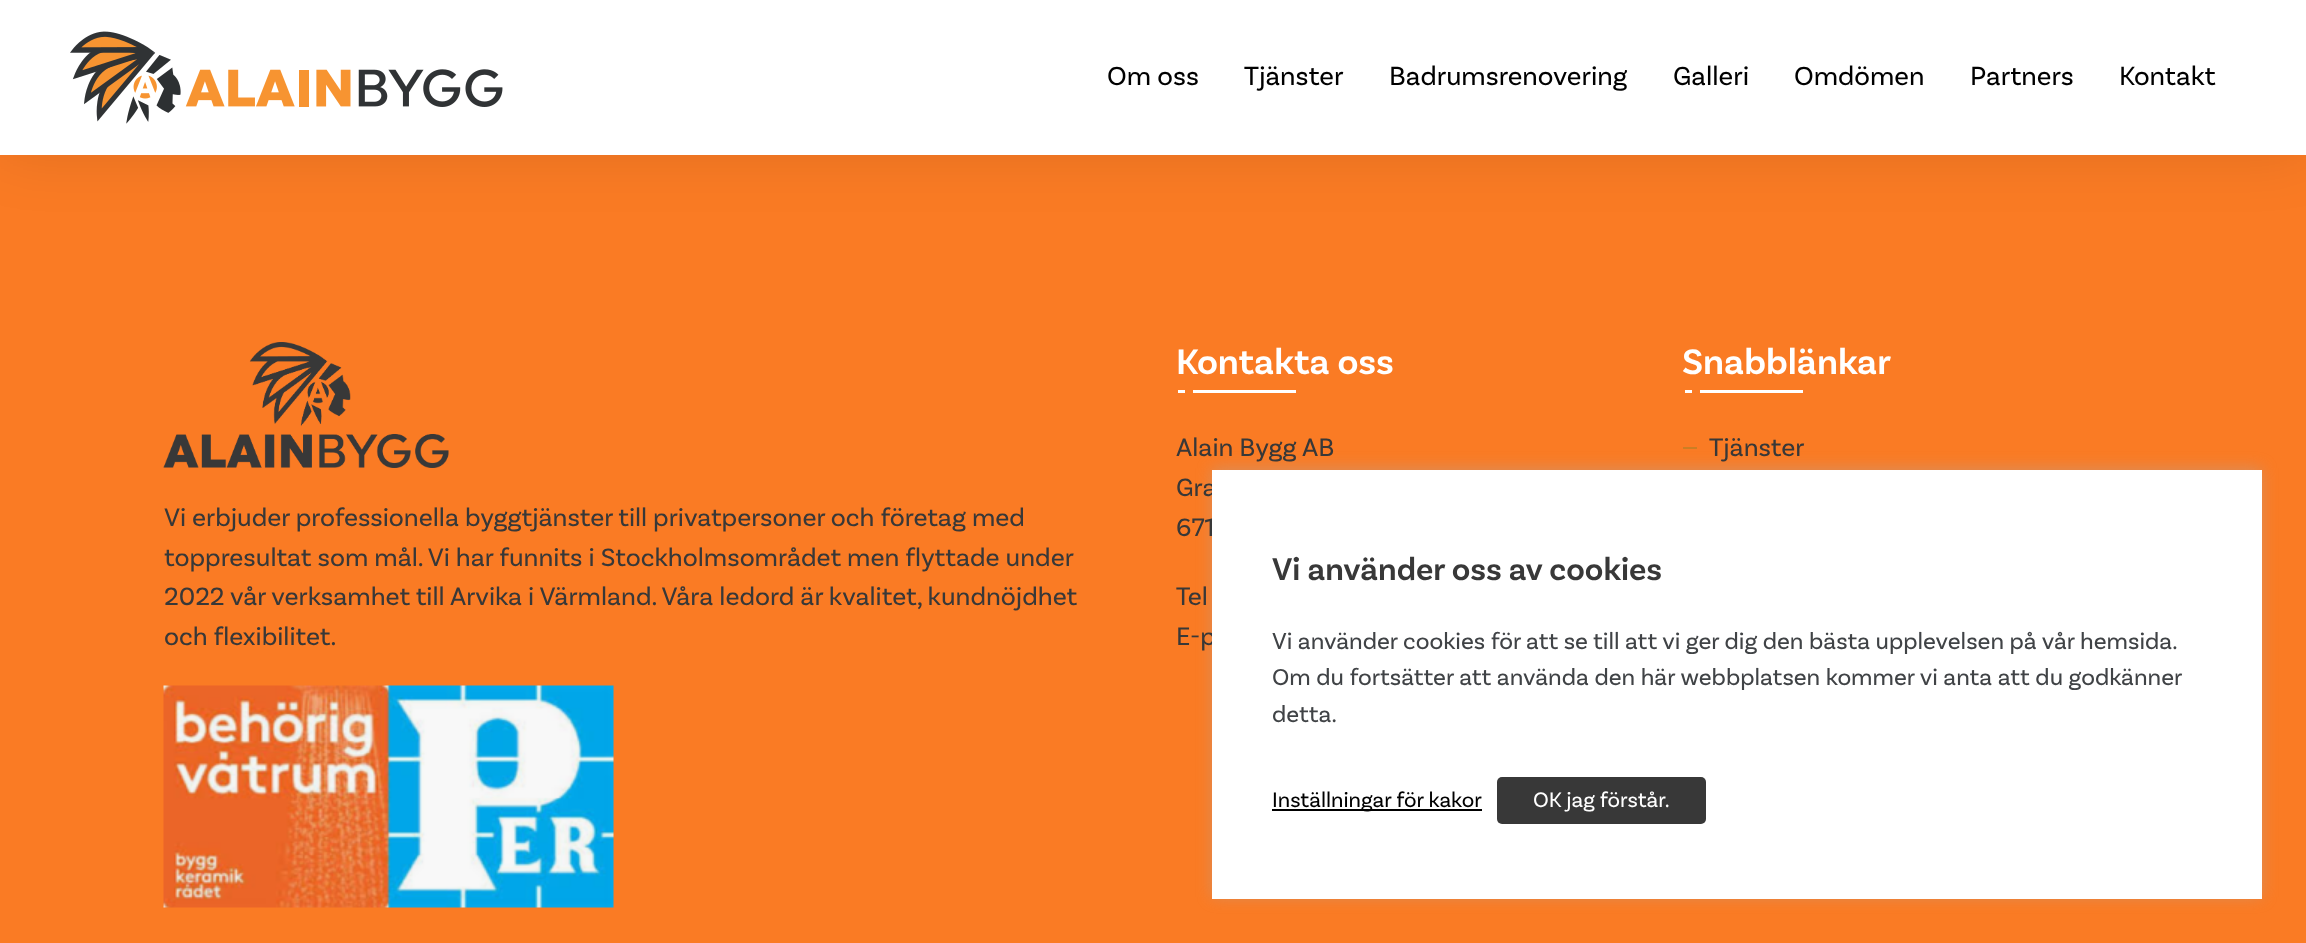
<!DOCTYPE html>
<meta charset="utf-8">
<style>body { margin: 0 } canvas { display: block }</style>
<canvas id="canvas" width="2306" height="943"></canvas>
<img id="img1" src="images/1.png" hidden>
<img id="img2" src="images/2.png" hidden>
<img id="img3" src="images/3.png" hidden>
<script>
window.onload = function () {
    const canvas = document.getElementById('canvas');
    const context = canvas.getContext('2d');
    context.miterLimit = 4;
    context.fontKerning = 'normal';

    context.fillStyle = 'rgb(250, 123, 36)';
    context.fillRect(0, 0, 2306, 943);
    context.fillStyle = 'rgba(0, 0, 0, 0.1)';
    context.filter = 'blur(30px)';
    context.beginPath();
    context.rect(0, -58, 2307, 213);
    context.fill();
    context.filter = 'none';
    context.fillStyle = 'rgb(255, 255, 255)';
    context.fillRect(0, 0, 2306, 155);
    context.drawImage(document.getElementById('img1'), 70, 31, 433, 93);
    context.fillRect(1178, 390, 7, 3);
    context.fillRect(1193, 390, 103, 3);
    context.fillRect(1685, 390, 7, 3);
    context.fillRect(1700, 390, 103, 3);
    context.fillStyle = 'rgb(203, 126, 36)';
    context.fillRect(1683, 447, 14, 2);
    context.drawImage(document.getElementById('img2'), 163, 342, 286, 126);
    context.drawImage(document.getElementById('img3'), 163, 685, 451, 223);
    context.fillStyle = 'rgba(172, 171, 171, 0.4)';
    context.filter = 'blur(7.5px)';
    context.beginPath();
    context.rect(1212, 468, 1050, 429);
    context.fill();
    context.filter = 'none';
    context.font = '27.5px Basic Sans';
    context.fillStyle = 'rgb(0, 0, 0)';
    context.fillText('Om oss', 1107, 85);
    context.fillText('Tjänster', 1244, 85);
    context.fillText('Badrumsrenovering', 1389, 85);
    context.fillText('Galleri', 1673, 85);
    context.fillText('Omdömen', 1794, 85);
    context.fillText('Partners', 1970, 85);
    context.fillText('Kontakt', 2119, 85);
    context.font = '600 37.25px Basic Sans';
    context.fillStyle = 'rgb(255, 255, 255)';
    context.fillText('Kontakta oss', 1176, 374);
    context.font = '26.4px Basic Sans';
    context.fillStyle = 'rgb(56, 56, 56)';
    context.fillText('Alain Bygg AB', 1176, 456);
    context.fillText('Gra', 1176, 496);
    context.fillText('671', 1176, 536);
    context.fillText('Tel', 1176, 605);
    context.fillText('E-p', 1176, 645);
    context.font = '600 37.25px Basic Sans';
    context.fillStyle = 'rgb(255, 255, 255)';
    context.fillText('Snabblänkar', 1682, 374);
    context.font = '26.4px Basic Sans';
    context.fillStyle = 'rgb(56, 56, 56)';
    context.fillText('Tjänster', 1709, 456);
    context.fillText('Vi erbjuder professionella byggtjänster till privatpersoner och företag med', 164, 526);
    context.fillText('toppresultat som mål. Vi har funnits i Stockholmsområdet men flyttade under', 164, 566);
    context.fillText('2022 vår verksamhet till Arvika i Värmland. Våra ledord är kvalitet, kundnöjdhet', 164, 605);
    context.fillText('och flexibilitet.', 164, 645);
    context.fillStyle = 'rgb(255, 255, 255)';
    context.fillRect(1212, 470, 1050, 429);
    context.font = '600 33px Basic Sans';
    context.fillStyle = 'rgb(56, 56, 56)';
    context.fillText('Vi använder oss av cookies', 1272, 580);
    context.font = '24.2px Basic Sans';
    context.fillStyle = 'rgb(64, 67, 70)';
    context.fillText('Vi använder cookies för att se till att vi ger dig den bästa upplevelsen på vår hemsida.', 1272, 649);
    context.fillText('Om du fortsätter att använda den här webbplatsen kommer vi anta att du godkänner', 1272, 685);
    context.fillText('detta.', 1272, 722);
    context.fillStyle = 'rgb(0, 0, 0)';
    context.fillRect(1272, 809, 210, 2);
    context.font = '22px Basic Sans';
    context.fillText('Inställningar för kakor', 1272, 807);
    context.fillStyle = 'rgb(56, 56, 56)';
    context.beginPath();
    context.roundRect(1497, 777, 209, 47, 5);
    context.fill();
    context.fillStyle = 'rgb(255, 255, 255)';
    context.fillText('OK jag förstår.', 1533, 807);
};
</script>
